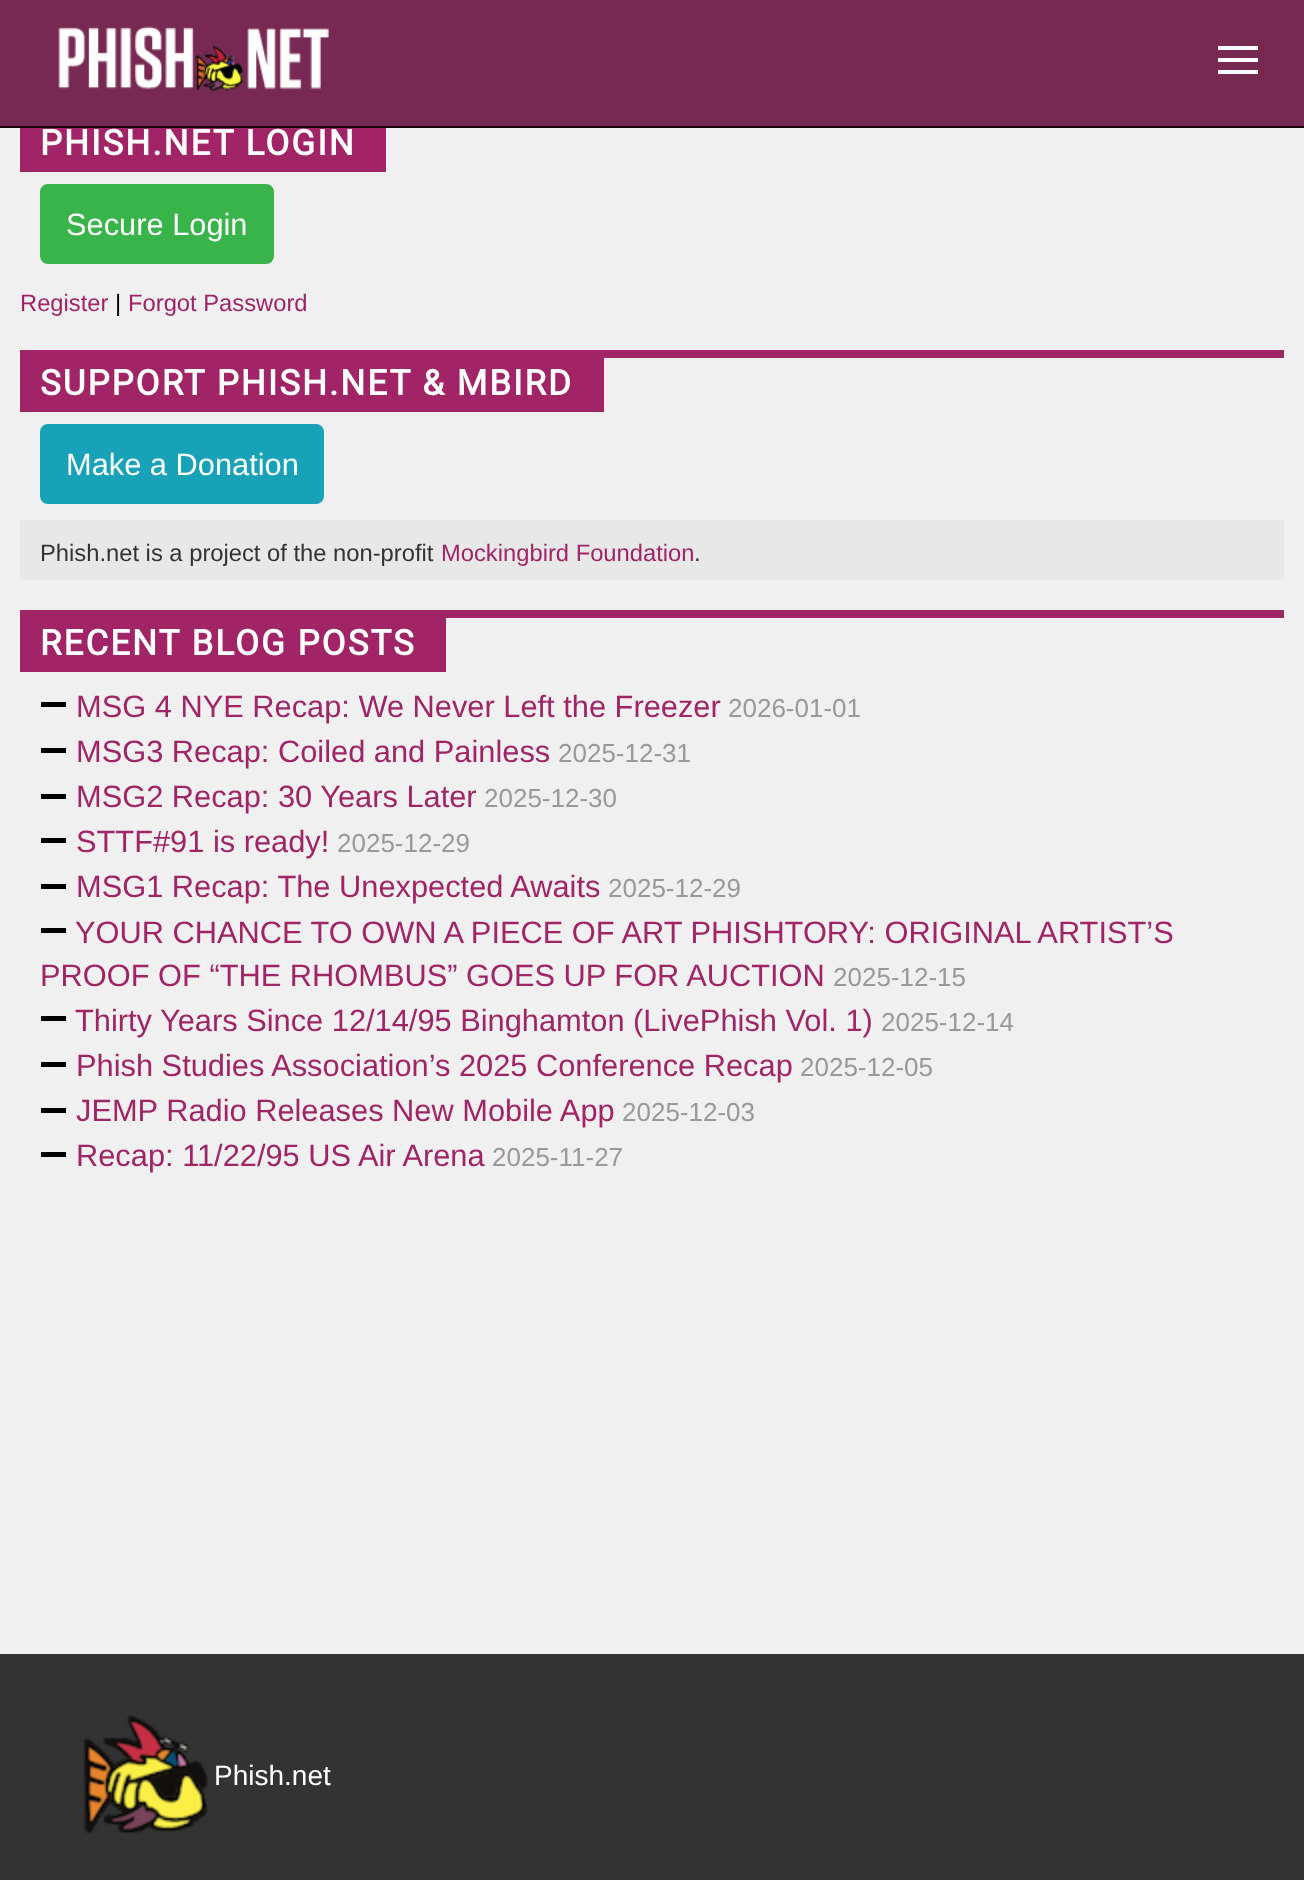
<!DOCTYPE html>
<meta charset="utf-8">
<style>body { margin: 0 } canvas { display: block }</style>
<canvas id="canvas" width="1304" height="1880"></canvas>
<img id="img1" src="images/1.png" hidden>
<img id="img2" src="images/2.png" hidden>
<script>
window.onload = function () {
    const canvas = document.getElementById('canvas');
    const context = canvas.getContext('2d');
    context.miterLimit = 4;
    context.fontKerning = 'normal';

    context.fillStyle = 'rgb(240, 240, 240)';
    context.fillRect(0, 0, 1304, 1880);
    context.fillStyle = 'rgb(119, 41, 83)';
    context.beginPath();
    context.rect(-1, -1, 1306, 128);
    context.fill();
    context.strokeStyle = 'rgb(24, 8, 17)';
    context.lineWidth = 2;
    context.stroke();
    context.drawImage(document.getElementById('img1'), 58, 26, 271, 66);
    context.fillStyle = 'rgb(255, 255, 255)';
    context.fillRect(1218, 46, 40, 4);
    context.fillRect(1218, 58, 40, 4);
    context.fillRect(1218, 70, 40, 4);
    context.fillStyle = 'rgb(160, 36, 102)';
    context.fillRect(20, 128, 366, 44);
    context.fillStyle = 'rgb(56, 180, 74)';
    context.beginPath();
    context.roundRect(41, 185, 232, 78, 7);
    context.fill();
    context.strokeStyle = 'rgb(56, 180, 74)';
    context.stroke();
    context.fillStyle = 'rgb(160, 36, 102)';
    context.fillRect(20, 350, 1264, 8);
    context.fillRect(20, 358, 584, 54);
    context.fillStyle = 'rgb(23, 162, 184)';
    context.beginPath();
    context.roundRect(41, 425, 282, 78, 7);
    context.fill();
    context.strokeStyle = 'rgb(23, 162, 184)';
    context.stroke();
    context.fillStyle = 'rgb(232, 232, 232)';
    context.fillRect(20, 520, 1264, 60);
    context.fillStyle = 'rgb(160, 36, 102)';
    context.fillRect(20, 610, 1264, 8);
    context.fillRect(20, 618, 426, 54);
    context.fillStyle = 'rgb(0, 0, 0)';
    context.fillRect(41, 702, 25, 5);
    context.fillRect(41, 748, 25, 5);
    context.fillRect(41, 794, 25, 5);
    context.fillRect(41, 838, 25, 5);
    context.fillRect(41, 884, 25, 5);
    context.fillRect(41, 928, 25, 5);
    context.fillRect(41, 1016, 25, 5);
    context.fillRect(41, 1062, 25, 5);
    context.fillRect(41, 1108, 25, 5);
    context.fillRect(41, 1152, 25, 5);
    context.fillStyle = 'rgb(51, 51, 51)';
    context.fillRect(0, 1654, 1304, 226);
    context.drawImage(document.getElementById('img2'), 83, 1715, 125, 119);
    context.letterSpacing = '2px';
    context.font = 'bold 35px Roboto';
    context.fillStyle = 'rgb(255, 255, 255)';
    context.fillText('PHISH.NET LOGIN', 40, 155);
    context.letterSpacing = '0px';
    context.font = '30.8px Liberation Sans';
    context.fillText('Secure Login', 66, 235);
    context.font = '23.75px Liberation Sans';
    context.fillStyle = 'rgb(160, 36, 102)';
    context.fillText('Register', 20, 311);
    context.fillStyle = 'rgb(0, 0, 0)';
    context.fillText('|', 115, 311);
    context.fillStyle = 'rgb(160, 36, 102)';
    context.fillText('Forgot Password', 128, 311);
    context.letterSpacing = '2px';
    context.font = 'bold 35px Roboto';
    context.fillStyle = 'rgb(255, 255, 255)';
    context.fillText('SUPPORT PHISH.NET & MBIRD', 40, 395);
    context.letterSpacing = '0px';
    context.font = '30.8px Liberation Sans';
    context.fillText('Make a Donation', 66, 475);
    context.font = '23.75px Liberation Sans';
    context.fillStyle = 'rgb(51, 51, 51)';
    context.fillText('Phish.net is a project of the non-profit', 40, 561);
    context.fillStyle = 'rgb(160, 36, 102)';
    context.fillText('Mockingbird Foundation', 441, 561);
    context.fillStyle = 'rgb(51, 51, 51)';
    context.fillText('.', 694, 561);
    context.letterSpacing = '2px';
    context.font = 'bold 35px Roboto';
    context.fillStyle = 'rgb(255, 255, 255)';
    context.fillText('RECENT BLOG POSTS', 40, 655);
    context.letterSpacing = '0px';
    context.font = '30.8px Liberation Sans';
    context.fillStyle = 'rgb(160, 36, 102)';
    context.fillText('MSG 4 NYE Recap: We Never Left the Freezer', 76, 717);
    context.font = '26px Liberation Sans';
    context.fillStyle = 'rgb(153, 153, 153)';
    context.fillText('2026-01-01', 728, 717);
    context.font = '30.8px Liberation Sans';
    context.fillStyle = 'rgb(160, 36, 102)';
    context.fillText('MSG3 Recap: Coiled and Painless', 76, 762);
    context.font = '26px Liberation Sans';
    context.fillStyle = 'rgb(153, 153, 153)';
    context.fillText('2025-12-31', 558, 762);
    context.font = '30.8px Liberation Sans';
    context.fillStyle = 'rgb(160, 36, 102)';
    context.fillText('MSG2 Recap: 30 Years Later', 76, 807);
    context.font = '26px Liberation Sans';
    context.fillStyle = 'rgb(153, 153, 153)';
    context.fillText('2025-12-30', 484, 807);
    context.font = '30.8px Liberation Sans';
    context.fillStyle = 'rgb(160, 36, 102)';
    context.fillText('STTF#91 is ready!', 76, 852);
    context.font = '26px Liberation Sans';
    context.fillStyle = 'rgb(153, 153, 153)';
    context.fillText('2025-12-29', 337, 852);
    context.font = '30.8px Liberation Sans';
    context.fillStyle = 'rgb(160, 36, 102)';
    context.fillText('MSG1 Recap: The Unexpected Awaits', 76, 897);
    context.font = '26px Liberation Sans';
    context.fillStyle = 'rgb(153, 153, 153)';
    context.fillText('2025-12-29', 608, 897);
    context.font = '30.8px Liberation Sans';
    context.fillStyle = 'rgb(160, 36, 102)';
    context.fillText('YOUR CHANCE TO OWN A PIECE OF ART PHISHTORY: ORIGINAL ARTIST’S', 75, 943);
    context.fillText('PROOF OF “THE RHOMBUS” GOES UP FOR AUCTION', 40, 986);
    context.font = '26px Liberation Sans';
    context.fillStyle = 'rgb(153, 153, 153)';
    context.fillText('2025-12-15', 833, 986);
    context.font = '30.8px Liberation Sans';
    context.fillStyle = 'rgb(160, 36, 102)';
    context.fillText('Thirty Years Since 12/14/95 Binghamton (LivePhish Vol. 1)', 75, 1031);
    context.font = '26px Liberation Sans';
    context.fillStyle = 'rgb(153, 153, 153)';
    context.fillText('2025-12-14', 881, 1031);
    context.font = '30.8px Liberation Sans';
    context.fillStyle = 'rgb(160, 36, 102)';
    context.fillText('Phish Studies Association’s 2025 Conference Recap', 76, 1076);
    context.font = '26px Liberation Sans';
    context.fillStyle = 'rgb(153, 153, 153)';
    context.fillText('2025-12-05', 800, 1076);
    context.font = '30.8px Liberation Sans';
    context.fillStyle = 'rgb(160, 36, 102)';
    context.fillText('JEMP Radio Releases New Mobile App', 76, 1121);
    context.font = '26px Liberation Sans';
    context.fillStyle = 'rgb(153, 153, 153)';
    context.fillText('2025-12-03', 622, 1121);
    context.font = '30.8px Liberation Sans';
    context.fillStyle = 'rgb(160, 36, 102)';
    context.fillText('Recap: 11/22/95 US Air Arena', 76, 1166);
    context.font = '26px Liberation Sans';
    context.fillStyle = 'rgb(153, 153, 153)';
    context.fillText('2025-11-27', 492, 1166);
    context.font = '28px Liberation Sans';
    context.fillStyle = 'rgb(255, 255, 255)';
    context.fillText('Phish.net', 214, 1785);
};
</script>
